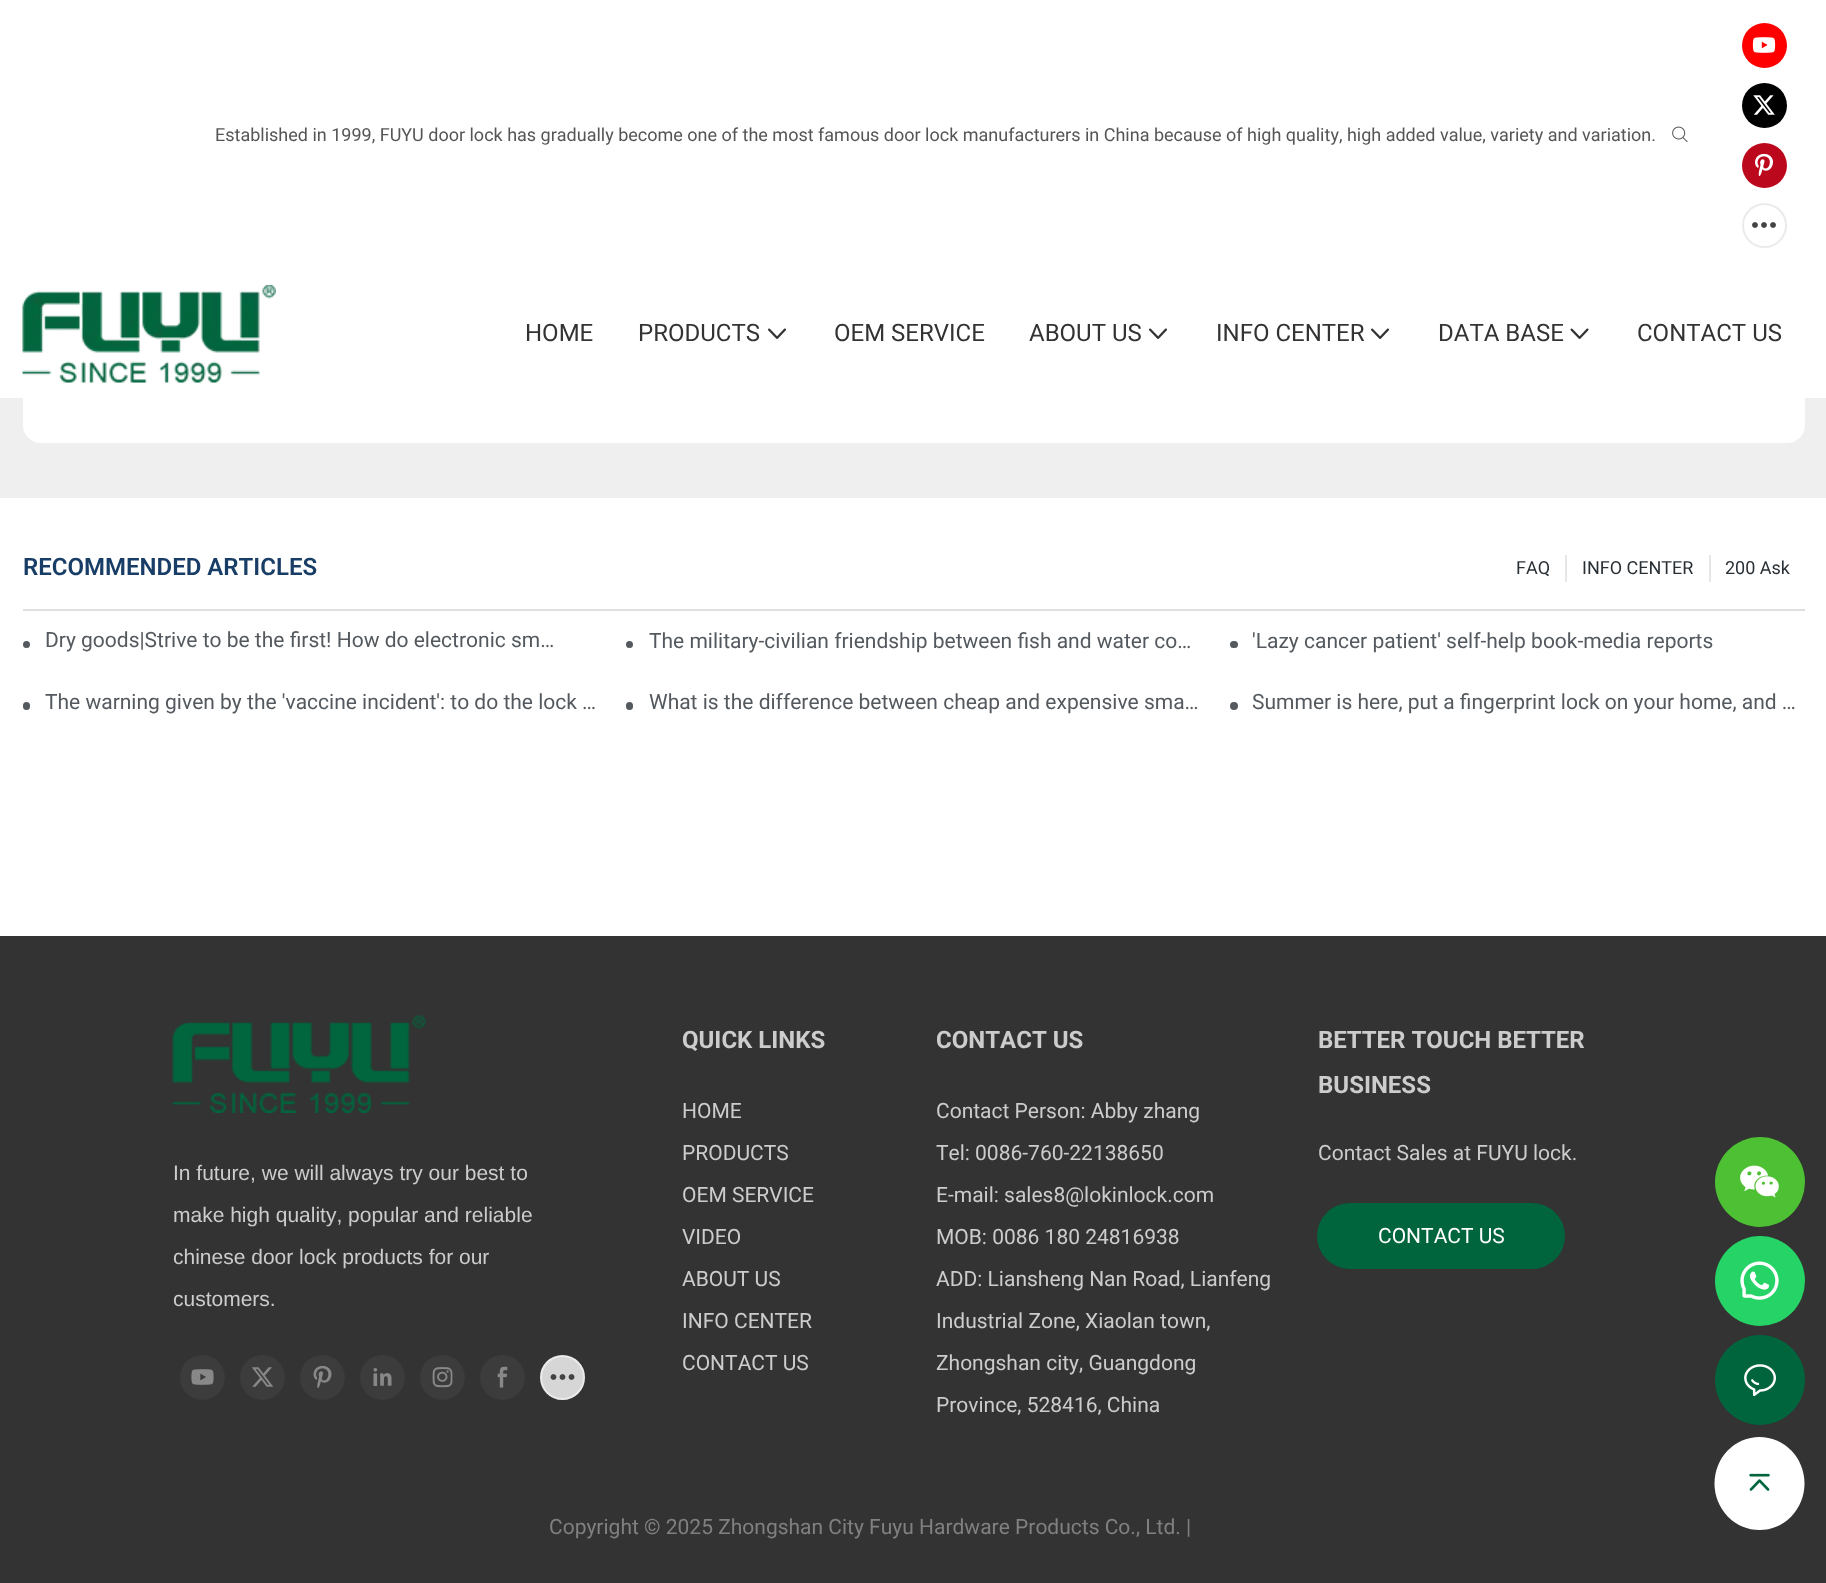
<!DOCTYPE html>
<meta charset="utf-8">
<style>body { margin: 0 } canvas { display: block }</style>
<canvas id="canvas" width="1826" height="1583"></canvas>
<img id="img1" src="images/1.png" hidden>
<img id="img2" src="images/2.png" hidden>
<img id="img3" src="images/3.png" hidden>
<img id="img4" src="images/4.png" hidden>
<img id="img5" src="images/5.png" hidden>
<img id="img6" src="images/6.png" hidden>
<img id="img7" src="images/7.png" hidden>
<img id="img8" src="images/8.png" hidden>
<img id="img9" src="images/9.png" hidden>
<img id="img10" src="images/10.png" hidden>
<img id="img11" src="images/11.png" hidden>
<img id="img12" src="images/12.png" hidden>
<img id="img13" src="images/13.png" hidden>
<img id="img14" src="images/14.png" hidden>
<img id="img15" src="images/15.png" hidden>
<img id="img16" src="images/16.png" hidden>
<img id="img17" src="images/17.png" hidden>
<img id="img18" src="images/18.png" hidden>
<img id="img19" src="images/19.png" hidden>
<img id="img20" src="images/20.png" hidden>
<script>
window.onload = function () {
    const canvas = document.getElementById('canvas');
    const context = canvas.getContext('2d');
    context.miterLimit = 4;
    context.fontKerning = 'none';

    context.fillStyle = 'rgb(255, 255, 255)';
    context.fillRect(0, 0, 1826, 1583);
    context.fillStyle = 'rgb(239, 239, 239)';
    context.fillRect(0, 398, 1826, 100);
    context.fillStyle = 'rgb(255, 255, 255)';
    context.beginPath();
    context.roundRect(23, -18, 1782, 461, 18);
    context.fill();
    context.drawImage(document.getElementById('img1'), 1672, 126, 16, 17);
    context.fillStyle = 'rgb(255, 0, 0)';
    context.beginPath();
    context.arc(1764.5, 45.5, 22.5, 0, 2 * Math.PI);
    context.fill();
    context.drawImage(document.getElementById('img2'), 1752, 37, 24, 16);
    context.fillStyle = 'rgb(0, 0, 0)';
    context.beginPath();
    context.arc(1764.5, 105.5, 22.5, 0, 2 * Math.PI);
    context.fill();
    context.drawImage(document.getElementById('img3'), 1753, 95, 22, 20);
    context.fillStyle = 'rgb(188, 8, 28)';
    context.beginPath();
    context.arc(1764.5, 165.5, 22.5, 0, 2 * Math.PI);
    context.fill();
    context.drawImage(document.getElementById('img4'), 1755, 153, 18, 23);
    context.beginPath();
    context.arc(1764.5, 225.5, 21.5, 0, 2 * Math.PI);
    context.strokeStyle = 'rgb(235, 235, 235)';
    context.lineWidth = 2;
    context.stroke();
    context.drawImage(document.getElementById('img5'), 1752, 222, 24, 6);
    context.drawImage(document.getElementById('img6'), 22, 285, 254, 98);
    context.drawImage(document.getElementById('img7'), 768, 328, 18, 11);
    context.drawImage(document.getElementById('img7'), 1149, 328, 18, 11);
    context.drawImage(document.getElementById('img7'), 1371, 328, 18, 11);
    context.drawImage(document.getElementById('img8'), 1570, 328, 19, 11);
    context.fillStyle = 'rgb(223, 223, 225)';
    context.fillRect(23, 609, 1782, 2);
    context.fillStyle = 'rgb(230, 230, 230)';
    context.fillRect(1565, 555, 2, 27);
    context.fillRect(1709, 555, 2, 27);
    context.fillStyle = 'rgb(92, 92, 92)';
    context.beginPath();
    context.arc(26.5, 644.5, 2, 0, 2 * Math.PI);
    context.fill();
    context.strokeStyle = 'rgb(83, 89, 94)';
    context.lineWidth = 3;
    context.stroke();
    context.beginPath();
    context.arc(629.5, 644.5, 2, 0, 2 * Math.PI);
    context.fill();
    context.stroke();
    context.beginPath();
    context.roundRect(1231.5, 642.5, 5, 4, 2);
    context.fill();
    context.stroke();
    context.beginPath();
    context.roundRect(24.5, 703.5, 4, 5, 2);
    context.fill();
    context.stroke();
    context.beginPath();
    context.roundRect(627.5, 703.5, 4, 5, 2);
    context.fill();
    context.stroke();
    context.beginPath();
    context.arc(1234, 706, 2.5, 0, 2 * Math.PI);
    context.fill();
    context.stroke();
    context.fillStyle = 'rgb(51, 51, 51)';
    context.fillRect(0, 936, 1826, 647);
    context.drawImage(document.getElementById('img9'), 172, 1015, 255, 98);
    context.fillStyle = 'rgb(60, 60, 60)';
    context.beginPath();
    context.arc(202.5, 1377.5, 22.5, 0, 2 * Math.PI);
    context.fill();
    context.drawImage(document.getElementById('img10'), 191, 1369, 23, 16);
    context.beginPath();
    context.arc(262.5, 1377.5, 22.5, 0, 2 * Math.PI);
    context.fill();
    context.drawImage(document.getElementById('img11'), 252, 1367, 22, 20);
    context.beginPath();
    context.arc(322.5, 1377.5, 22.5, 0, 2 * Math.PI);
    context.fill();
    context.drawImage(document.getElementById('img12'), 313, 1365, 19, 23);
    context.beginPath();
    context.arc(382.5, 1377.5, 22.5, 0, 2 * Math.PI);
    context.fill();
    context.drawImage(document.getElementById('img13'), 373, 1368, 19, 18);
    context.beginPath();
    context.arc(442.5, 1377.5, 22.5, 0, 2 * Math.PI);
    context.fill();
    context.drawImage(document.getElementById('img14'), 432, 1367, 21, 21);
    context.beginPath();
    context.arc(502.5, 1377.5, 22.5, 0, 2 * Math.PI);
    context.fill();
    context.drawImage(document.getElementById('img15'), 497, 1366, 11, 22);
    context.fillStyle = 'rgb(214, 214, 214)';
    context.beginPath();
    context.arc(562.5, 1377.5, 21.5, 0, 2 * Math.PI);
    context.fill();
    context.strokeStyle = 'rgb(235, 235, 235)';
    context.lineWidth = 2;
    context.stroke();
    context.drawImage(document.getElementById('img16'), 550, 1374, 25, 6);
    context.fillStyle = 'rgb(0, 101, 61)';
    context.beginPath();
    context.roundRect(1317, 1203, 248, 66, 33);
    context.fill();
    context.fillStyle = 'rgb(78, 192, 52)';
    context.beginPath();
    context.arc(1760, 1182, 45, 0, 2 * Math.PI);
    context.fill();
    context.drawImage(document.getElementById('img17'), 1740, 1165, 39, 33);
    context.fillStyle = 'rgb(37, 211, 102)';
    context.beginPath();
    context.arc(1760, 1281, 45, 0, 2 * Math.PI);
    context.fill();
    context.drawImage(document.getElementById('img18'), 1740, 1261, 39, 39);
    context.fillStyle = 'rgb(0, 101, 61)';
    context.beginPath();
    context.arc(1760, 1380, 45, 0, 2 * Math.PI);
    context.fill();
    context.drawImage(document.getElementById('img19'), 1744, 1364, 32, 33);
    context.fillStyle = 'rgb(255, 255, 255)';
    context.beginPath();
    context.ellipse(1759.5, 1483.5, 45, 46.5, 0, 0, 2 * Math.PI);
    context.fill();
    context.drawImage(document.getElementById('img20'), 1749, 1473, 21, 18);
    context.font = '18px Roboto';
    context.fillStyle = 'rgb(85, 85, 85)';
    context.fillText('Established in 1999, FUYU door lock has gradually become one of the most famous door lock manufacturers in China because of high quality, high added value, variety and variation.', 215, 141);
    context.font = '24px Roboto';
    context.fillStyle = 'rgb(51, 51, 51)';
    context.fillText('HOME', 525, 341);
    context.fillText('PRODUCTS', 638, 341);
    context.fillText('OEM SERVICE', 834, 341);
    context.fillText('ABOUT US', 1029, 341);
    context.fillText('INFO CENTER', 1216, 341);
    context.fillText('DATA BASE', 1438, 341);
    context.fillText('CONTACT US', 1637, 341);
    context.font = '600 24px Roboto';
    context.fillStyle = 'rgb(24, 61, 102)';
    context.fillText('RECOMMENDED ARTICLES', 23, 575);
    context.font = '18px Roboto';
    context.fillStyle = 'rgb(40, 48, 54)';
    context.fillText('FAQ', 1516, 574);
    context.fillText('INFO CENTER', 1582, 574);
    context.fillText('200 Ask', 1725, 574);
    context.font = '21px Roboto';
    context.fillStyle = 'rgb(83, 89, 94)';
    context.fillText('Dry goods|Strive to be the first! How do electronic sm…', 45, 647);
    context.fillText('The military-civilian friendship between fish and water co…', 649, 648);
    context.fillText('\'Lazy cancer patient\' self-help book-media reports', 1252, 648);
    context.fillText('The warning given by the \'vaccine incident\': to do the lock …', 45, 709);
    context.fillText('What is the difference between cheap and expensive sma…', 649, 709);
    context.fillText('Summer is here, put a fingerprint lock on your home, and …', 1252, 709);
    context.font = '21px Liberation Sans';
    context.fillStyle = 'rgb(204, 204, 204)';
    context.fillText('In future, we will always try our best to', 173, 1180);
    context.fillText('make high quality, popular and reliable', 173, 1222);
    context.fillText('chinese door lock products for our', 173, 1264);
    context.fillText('customers.', 173, 1306);
    context.font = 'bold 24px Roboto';
    context.fillText('QUICK LINKS', 682, 1048);
    context.font = '21px Roboto';
    context.fillText('HOME', 682, 1118);
    context.fillText('PRODUCTS', 682, 1160);
    context.fillText('OEM SERVICE', 682, 1202);
    context.fillText('VIDEO', 682, 1244);
    context.fillText('ABOUT US', 682, 1286);
    context.fillText('INFO CENTER', 682, 1328);
    context.fillText('CONTACT US', 682, 1370);
    context.font = 'bold 24px Roboto';
    context.fillText('CONTACT US', 936, 1048);
    context.font = '21px Roboto';
    context.fillText('Contact Person: Abby zhang', 936, 1118);
    context.fillText('Tel: 0086-760-22138650', 936, 1160);
    context.fillText('E-mail: sales8@lokinlock.com', 936, 1202);
    context.fillText('MOB: 0086 180 24816938', 936, 1244);
    context.fillText('ADD: Liansheng Nan Road, Lianfeng', 936, 1286);
    context.fillText('Industrial Zone, Xiaolan town,', 936, 1328);
    context.fillText('Zhongshan city, Guangdong', 936, 1370);
    context.fillText('Province, 528416, China', 936, 1412);
    context.font = 'bold 24px Roboto';
    context.fillText('BETTER TOUCH BETTER', 1318, 1048);
    context.fillText('BUSINESS', 1318, 1093);
    context.font = '21px Roboto';
    context.fillText('Contact Sales at FUYU lock.', 1318, 1160);
    context.fillStyle = 'rgb(255, 255, 255)';
    context.fillText('CONTACT US', 1378, 1243);
    context.fillStyle = 'rgb(128, 128, 128)';
    context.fillText('Copyright © 2025 Zhongshan City Fuyu Hardware Products Co., Ltd. |', 549, 1534);
};
</script>
